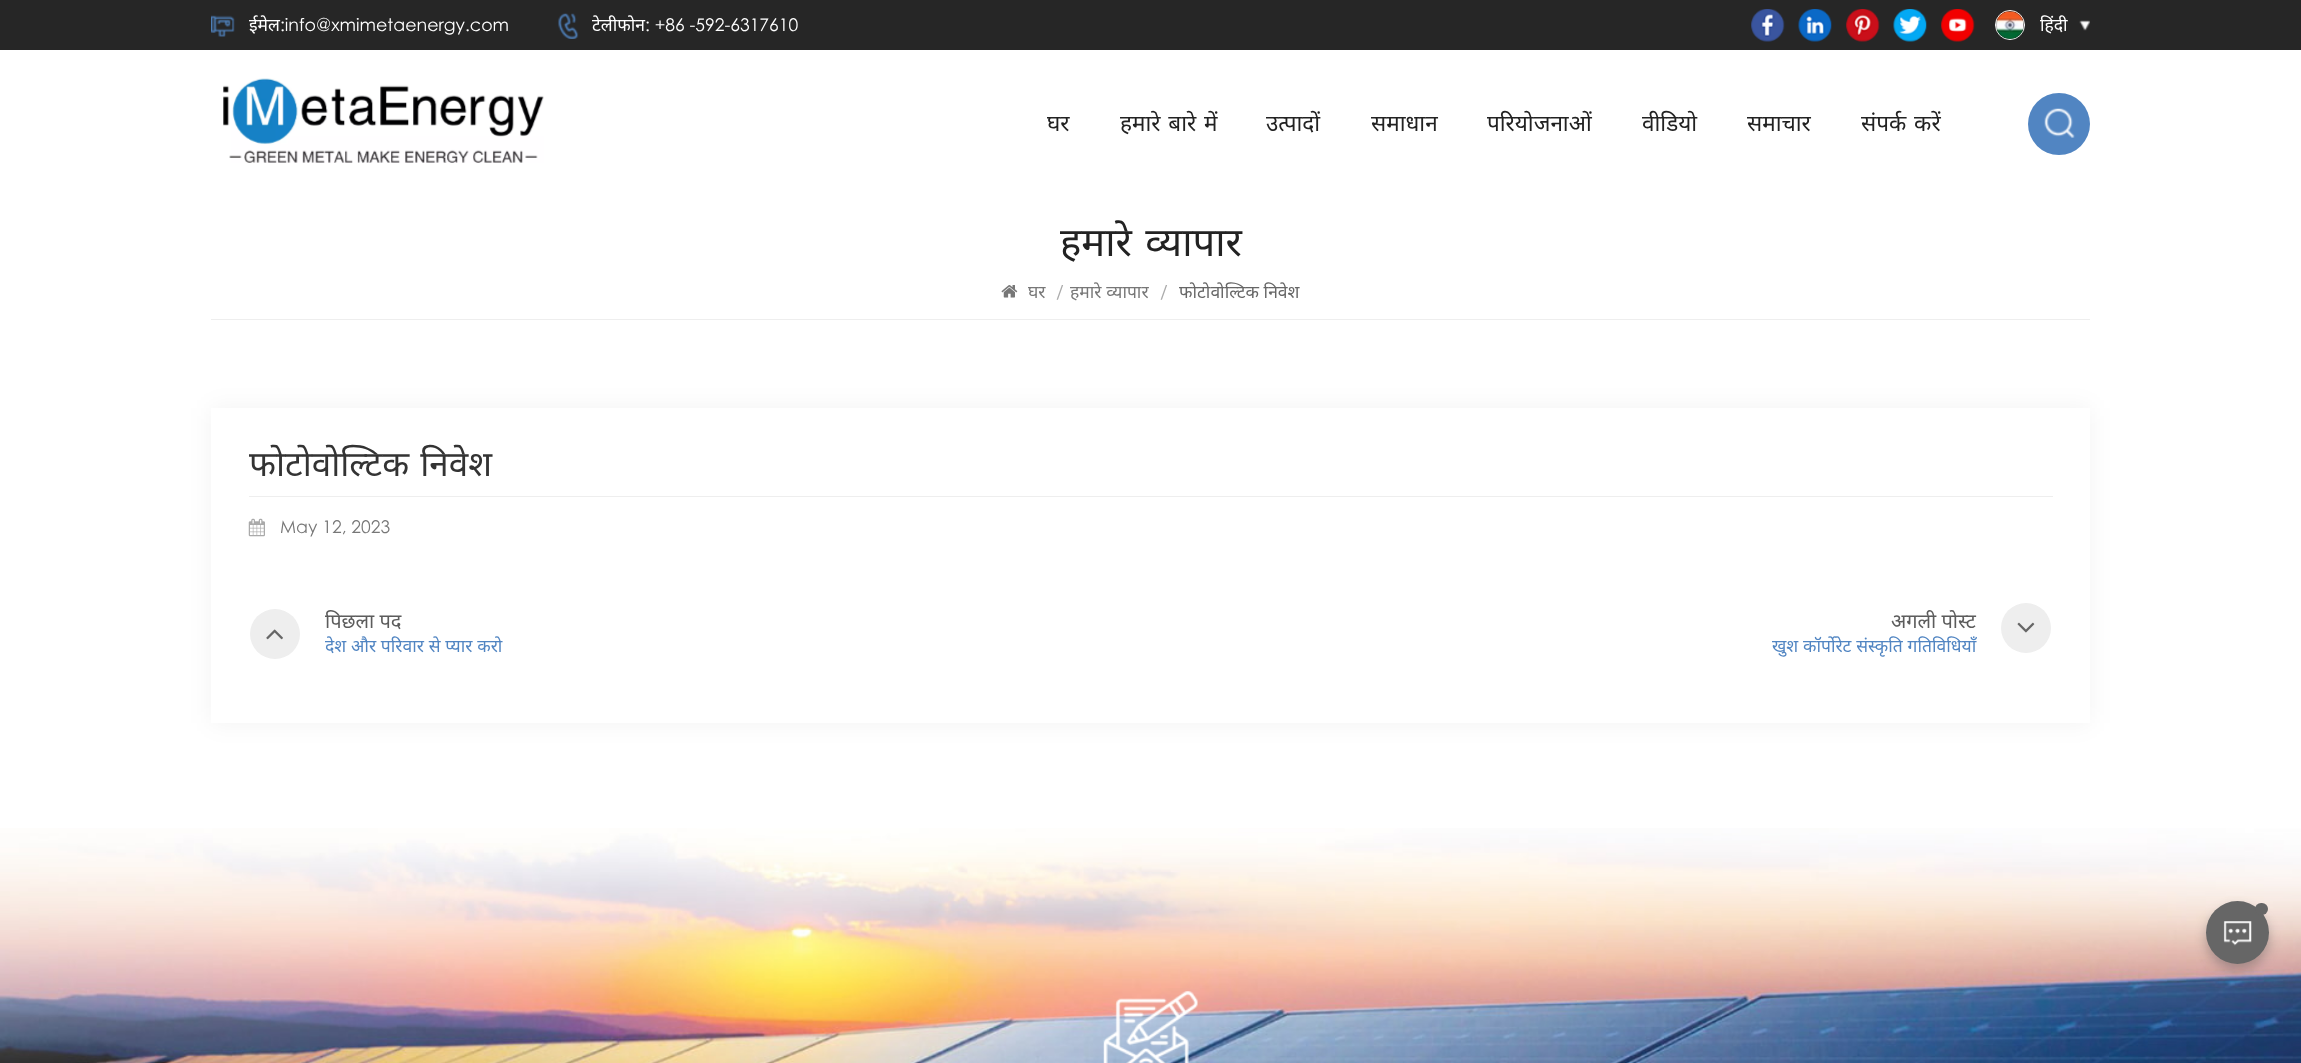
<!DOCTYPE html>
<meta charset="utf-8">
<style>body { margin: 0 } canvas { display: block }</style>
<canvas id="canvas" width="2301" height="1063"></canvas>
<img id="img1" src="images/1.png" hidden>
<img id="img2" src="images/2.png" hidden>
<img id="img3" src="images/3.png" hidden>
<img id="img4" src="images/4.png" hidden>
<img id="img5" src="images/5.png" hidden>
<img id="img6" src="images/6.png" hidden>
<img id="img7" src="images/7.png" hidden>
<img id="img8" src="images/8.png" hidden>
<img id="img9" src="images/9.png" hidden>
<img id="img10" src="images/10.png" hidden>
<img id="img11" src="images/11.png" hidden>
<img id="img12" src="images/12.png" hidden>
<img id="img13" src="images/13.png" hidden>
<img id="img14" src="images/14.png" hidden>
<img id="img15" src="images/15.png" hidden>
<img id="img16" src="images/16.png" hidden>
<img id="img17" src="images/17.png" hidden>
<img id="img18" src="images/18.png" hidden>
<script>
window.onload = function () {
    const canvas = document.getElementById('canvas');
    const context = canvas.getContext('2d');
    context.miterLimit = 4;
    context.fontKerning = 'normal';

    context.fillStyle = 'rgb(255, 255, 255)';
    context.fillRect(0, 0, 2301, 1063);
    context.fillStyle = 'rgb(38, 38, 38)';
    context.fillRect(0, 0, 2301, 50);
    context.drawImage(document.getElementById('img1'), 211, 15, 24, 22);
    context.drawImage(document.getElementById('img2'), 558, 13, 21, 26);
    context.drawImage(document.getElementById('img3'), 1751, 9, 34, 33);
    context.drawImage(document.getElementById('img4'), 1798, 9, 34, 33);
    context.drawImage(document.getElementById('img5'), 1846, 9, 34, 33);
    context.drawImage(document.getElementById('img6'), 1893, 9, 34, 33);
    context.drawImage(document.getElementById('img7'), 1941, 9, 34, 33);
    context.beginPath();
    context.arc(2010, 25, 14.5, 0, 2 * Math.PI);
    context.strokeStyle = 'rgb(255, 255, 255)';
    context.stroke();
    context.drawImage(document.getElementById('img8'), 1996, 10, 28, 29);
    context.drawImage(document.getElementById('img9'), 2079, 20, 11, 11);
    context.drawImage(document.getElementById('img10'), 223, 78, 321, 85);
    context.fillStyle = 'rgb(81, 133, 194)';
    context.beginPath();
    context.arc(2059, 124, 31, 0, 2 * Math.PI);
    context.fill();
    context.drawImage(document.getElementById('img11'), 2044, 108, 31, 30);
    context.fillStyle = 'rgb(238, 238, 238)';
    context.fillRect(211, 319, 1879, 1);
    context.drawImage(document.getElementById('img12'), 1001, 285, 17, 13);
    context.fillStyle = 'rgba(0, 0, 0, 0.05)';
    context.filter = 'blur(12.5px)';
    context.beginPath();
    context.rect(211, 408, 1879, 315);
    context.fill();
    context.filter = 'none';
    context.fillStyle = 'rgb(255, 255, 255)';
    context.fillRect(211, 408, 1879, 315);
    context.fillStyle = 'rgb(238, 238, 238)';
    context.fillRect(249, 496, 1804, 1);
    context.drawImage(document.getElementById('img13'), 248, 518, 17, 19);
    context.beginPath();
    context.arc(275, 634, 25, 0, 2 * Math.PI);
    context.fill();
    context.drawImage(document.getElementById('img14'), 266, 629, 17, 11);
    context.beginPath();
    context.arc(2026, 628, 25, 0, 2 * Math.PI);
    context.fill();
    context.drawImage(document.getElementById('img15'), 2017, 622, 18, 11);
    context.drawImage(document.getElementById('img16'), 0, 828, 2301, 235);
    context.drawImage(document.getElementById('img17'), 1103, 991, 95, 72);
    context.fillStyle = 'rgba(35, 50, 56, 0.3)';
    context.filter = 'blur(6px)';
    context.beginPath();
    context.roundRect(2206, 908, 63, 62, 31);
    context.fill();
    context.filter = 'none';
    context.fillStyle = 'rgb(102, 102, 102)';
    context.beginPath();
    context.arc(2237.5, 932.5, 31.5, 0, 2 * Math.PI);
    context.fill();
    context.drawImage(document.getElementById('img18'), 2223, 921, 29, 25);
    context.beginPath();
    context.roundRect(2255, 903, 13, 12, 6);
    context.fill();
    context.font = '17.5px Noto Sans';
    context.fillStyle = 'rgb(255, 255, 255)';
    context.fillText('ईमेल', 249, 31);
    context.font = '17.5px Century Gothic';
    context.fillText(':info@xmimetaenergy.com', 280, 31);
    context.font = '17.5px Noto Sans';
    context.fillText('टेलीफोन', 592, 31);
    context.font = '17.5px Century Gothic';
    context.fillText(': +86 -592-6317610', 645, 31);
    context.font = '17.5px Noto Sans';
    context.fillText('हिंदी', 2040, 31);
    context.font = '22.5px Noto Sans';
    context.fillStyle = 'rgb(34, 34, 34)';
    context.fillText('घर', 1047, 131);
    context.wordSpacing = '2px';
    context.fillText('हमारे बारे में', 1120, 131);
    context.wordSpacing = '0px';
    context.fillText('उत्पादों', 1266, 131);
    context.fillText('समाधान', 1371, 131);
    context.fillText('परियोजनाओं', 1487, 131);
    context.fillText('वीडियो', 1642, 131);
    context.fillText('समाचार', 1747, 131);
    context.wordSpacing = '2px';
    context.fillText('संपर्क करें', 1861, 131);
    context.wordSpacing = '3px';
    context.font = '40px Noto Sans';
    context.fillText('हमारे व्यापार', 1060, 256);
    context.wordSpacing = '0px';
    context.font = '17.5px Noto Sans';
    context.fillStyle = 'rgb(119, 119, 119)';
    context.fillText('घर', 1028, 298);
    context.font = '17.5px Century Gothic';
    context.fillStyle = 'rgb(170, 170, 170)';
    context.fillText('/', 1056, 298);
    context.wordSpacing = '0.25px';
    context.font = '17.5px Noto Sans';
    context.fillStyle = 'rgb(119, 119, 119)';
    context.fillText('हमारे व्यापार', 1070, 298);
    context.wordSpacing = '0px';
    context.font = '17.5px Century Gothic';
    context.fillStyle = 'rgb(170, 170, 170)';
    context.fillText('/', 1160, 298);
    context.font = '17.5px Noto Sans';
    context.fillStyle = 'rgb(102, 102, 102)';
    context.fillText('फोटोवोल्टिक निवेश', 1179, 298);
    context.wordSpacing = '2px';
    context.font = '35px Noto Sans';
    context.fillStyle = 'rgb(51, 51, 51)';
    context.fillText('फोटोवोल्टिक निवेश', 249, 476);
    context.wordSpacing = '0px';
    context.font = '17.5px Century Gothic';
    context.fillStyle = 'rgb(119, 119, 119)';
    context.fillText('May 12, 2023', 280, 533);
    context.font = '20px Noto Sans';
    context.fillStyle = 'rgb(92, 92, 92)';
    context.fillText('पिछला पद', 325, 628);
    context.save();
    context.beginPath();
    context.rect(325, 634, 819, 25);
    context.clip();
    context.wordSpacing = '0.25px';
    context.font = '17.5px Noto Sans';
    context.fillStyle = 'rgb(81, 133, 194)';
    context.fillText('देश और परिवार से प्यार करो', 325, 652);
    context.restore();
    context.fillText('अगली पोस्ट', 1891, 628);
    context.wordSpacing = '0.25px';
    context.font = '17.5px Noto Sans';
    context.fillStyle = 'rgb(81, 133, 194)';
    context.fillText('खुश कॉर्पोरेट संस्कृति गतिविधियाँ', 1772, 652);
};
</script>
